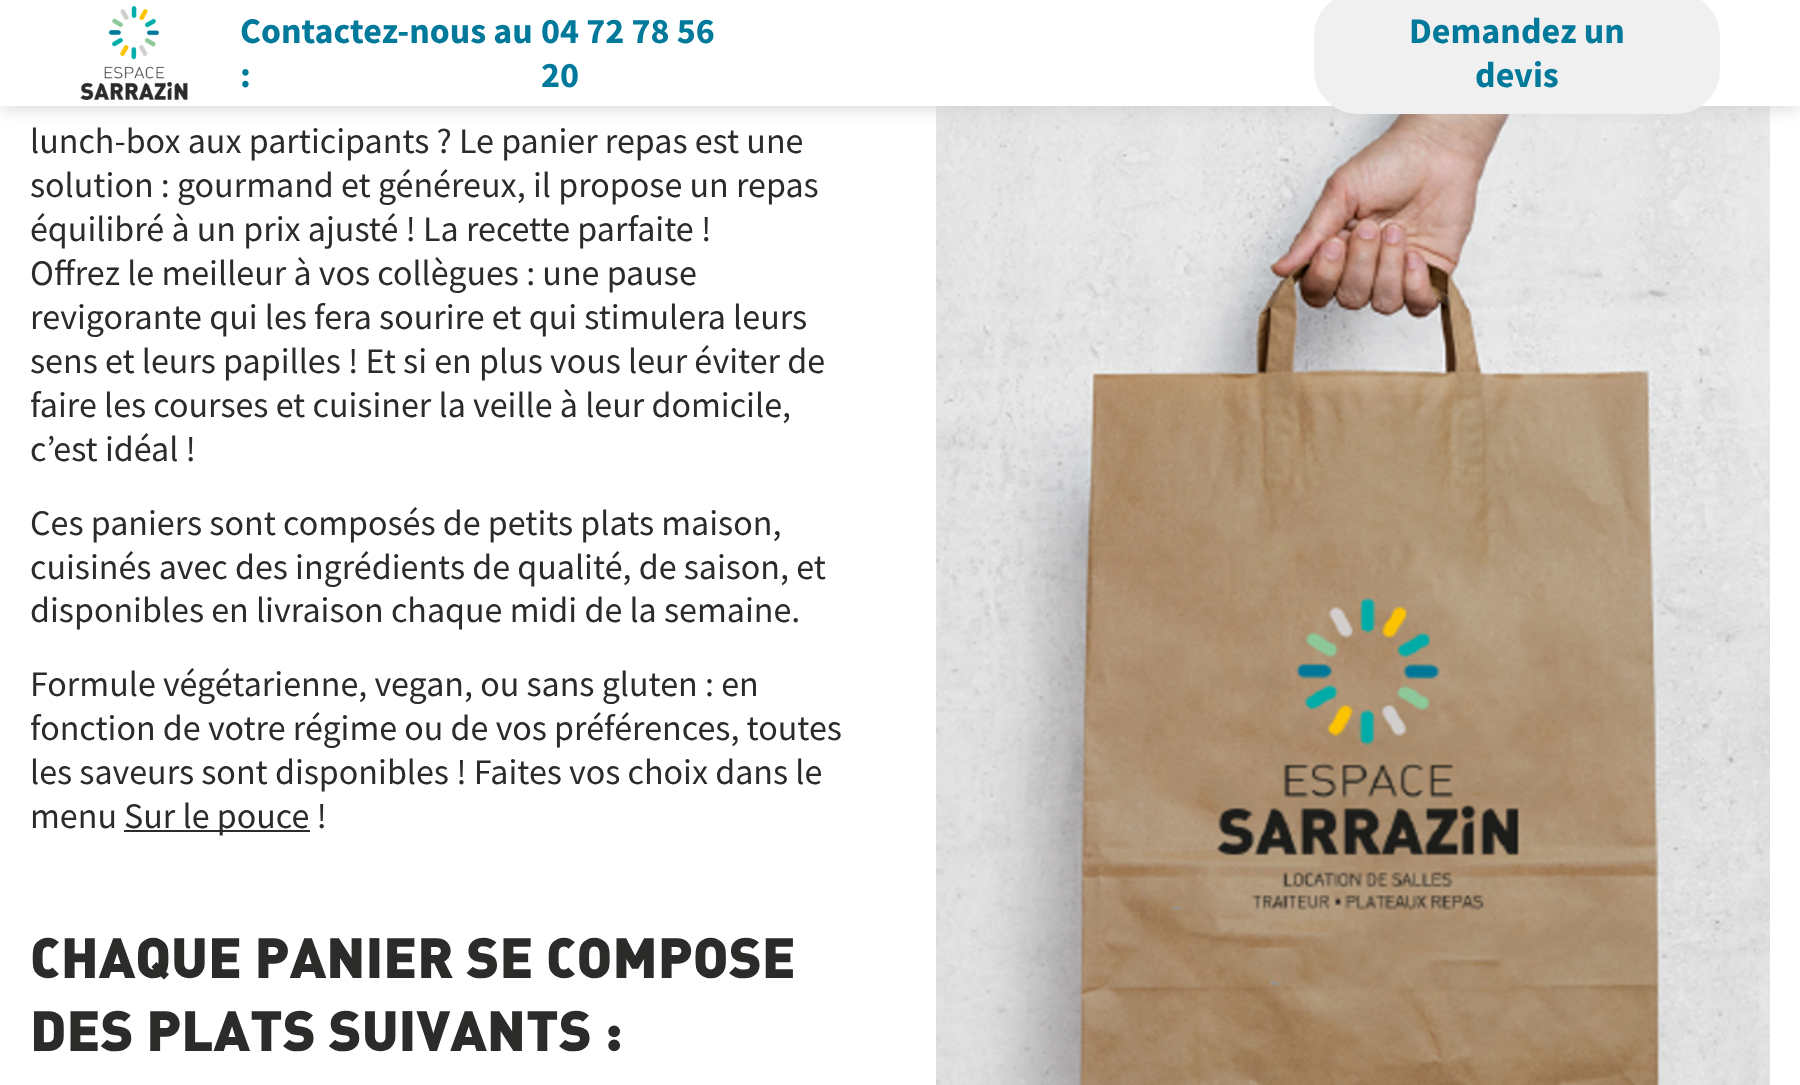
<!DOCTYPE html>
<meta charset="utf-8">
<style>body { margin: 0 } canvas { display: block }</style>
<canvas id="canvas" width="1800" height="1085"></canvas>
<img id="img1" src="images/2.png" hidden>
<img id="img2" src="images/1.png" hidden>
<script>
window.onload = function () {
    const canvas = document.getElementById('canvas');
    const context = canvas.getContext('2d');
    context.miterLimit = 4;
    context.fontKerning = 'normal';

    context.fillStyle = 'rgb(255, 255, 255)';
    context.fillRect(0, 0, 1800, 1085);
    context.drawImage(document.getElementById('img1'), 936, 106, 834, 979);
    context.fillStyle = 'rgb(210, 206, 205)';
    context.filter = 'blur(10px)';
    context.beginPath();
    context.rect(0, 0, 1800, 106);
    context.fill();
    context.filter = 'none';
    context.fillStyle = 'rgb(255, 255, 255)';
    context.fillRect(0, 0, 1800, 106);
    context.drawImage(document.getElementById('img2'), 80, 6, 108, 94);
    context.fillStyle = 'rgb(241, 240, 240)';
    context.beginPath();
    context.roundRect(1316, -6, 402, 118, 42);
    context.fill();
    context.strokeStyle = 'rgb(241, 240, 240)';
    context.lineWidth = 4;
    context.stroke();
    context.fillStyle = 'rgb(43, 43, 42)';
    context.fillRect(124, 830, 186, 2);
    context.font = 'bold 36px Source Sans Pro';
    context.fillStyle = 'rgb(0, 121, 155)';
    context.fillText('Contactez-nous au', 240, 43);
    context.fillText(':', 240, 87);
    context.fillText('04 72 78 56', 541, 43);
    context.fillText('20', 541, 87);
    context.fillText('Demandez un', 1409, 43);
    context.fillText('devis', 1475, 87);
    context.font = '36px Source Sans Pro';
    context.fillStyle = 'rgb(43, 43, 42)';
    context.fillText('lunch-box aux participants ? Le panier repas est une', 30, 153);
    context.fillText('solution : gourmand et généreux, il propose un repas', 30, 197);
    context.fillText('équilibré à un prix ajusté ! La recette parfaite !', 30, 241);
    context.fillText('Offrez le meilleur à vos collègues : une pause', 30, 285);
    context.fillText('revigorante qui les fera sourire et qui stimulera leurs', 30, 329);
    context.fillText('sens et leurs papilles ! Et si en plus vous leur éviter de', 30, 373);
    context.fillText('faire les courses et cuisiner la veille à leur domicile,', 30, 417);
    context.fillText('c’est idéal !', 30, 461);
    context.fillText('Ces paniers sont composés de petits plats maison,', 30, 535);
    context.fillText('cuisinés avec des ingrédients de qualité, de saison, et', 30, 579);
    context.fillText('disponibles en livraison chaque midi de la semaine.', 30, 622);
    context.fillText('Formule végétarienne, vegan, ou sans gluten : en', 30, 696);
    context.fillText('fonction de votre régime ou de vos préférences, toutes', 30, 740);
    context.fillText('les saveurs sont disponibles ! Faites vos choix dans le', 30, 784);
    context.fillText('menu', 30, 828);
    context.fillText('Sur le pouce !', 124, 828);
    context.font = '900 56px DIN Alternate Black';
    context.fillText('CHAQUE PANIER SE COMPOSE', 30, 978);
    context.fillText('DES PLATS SUIVANTS :', 30, 1051);
};
</script>
